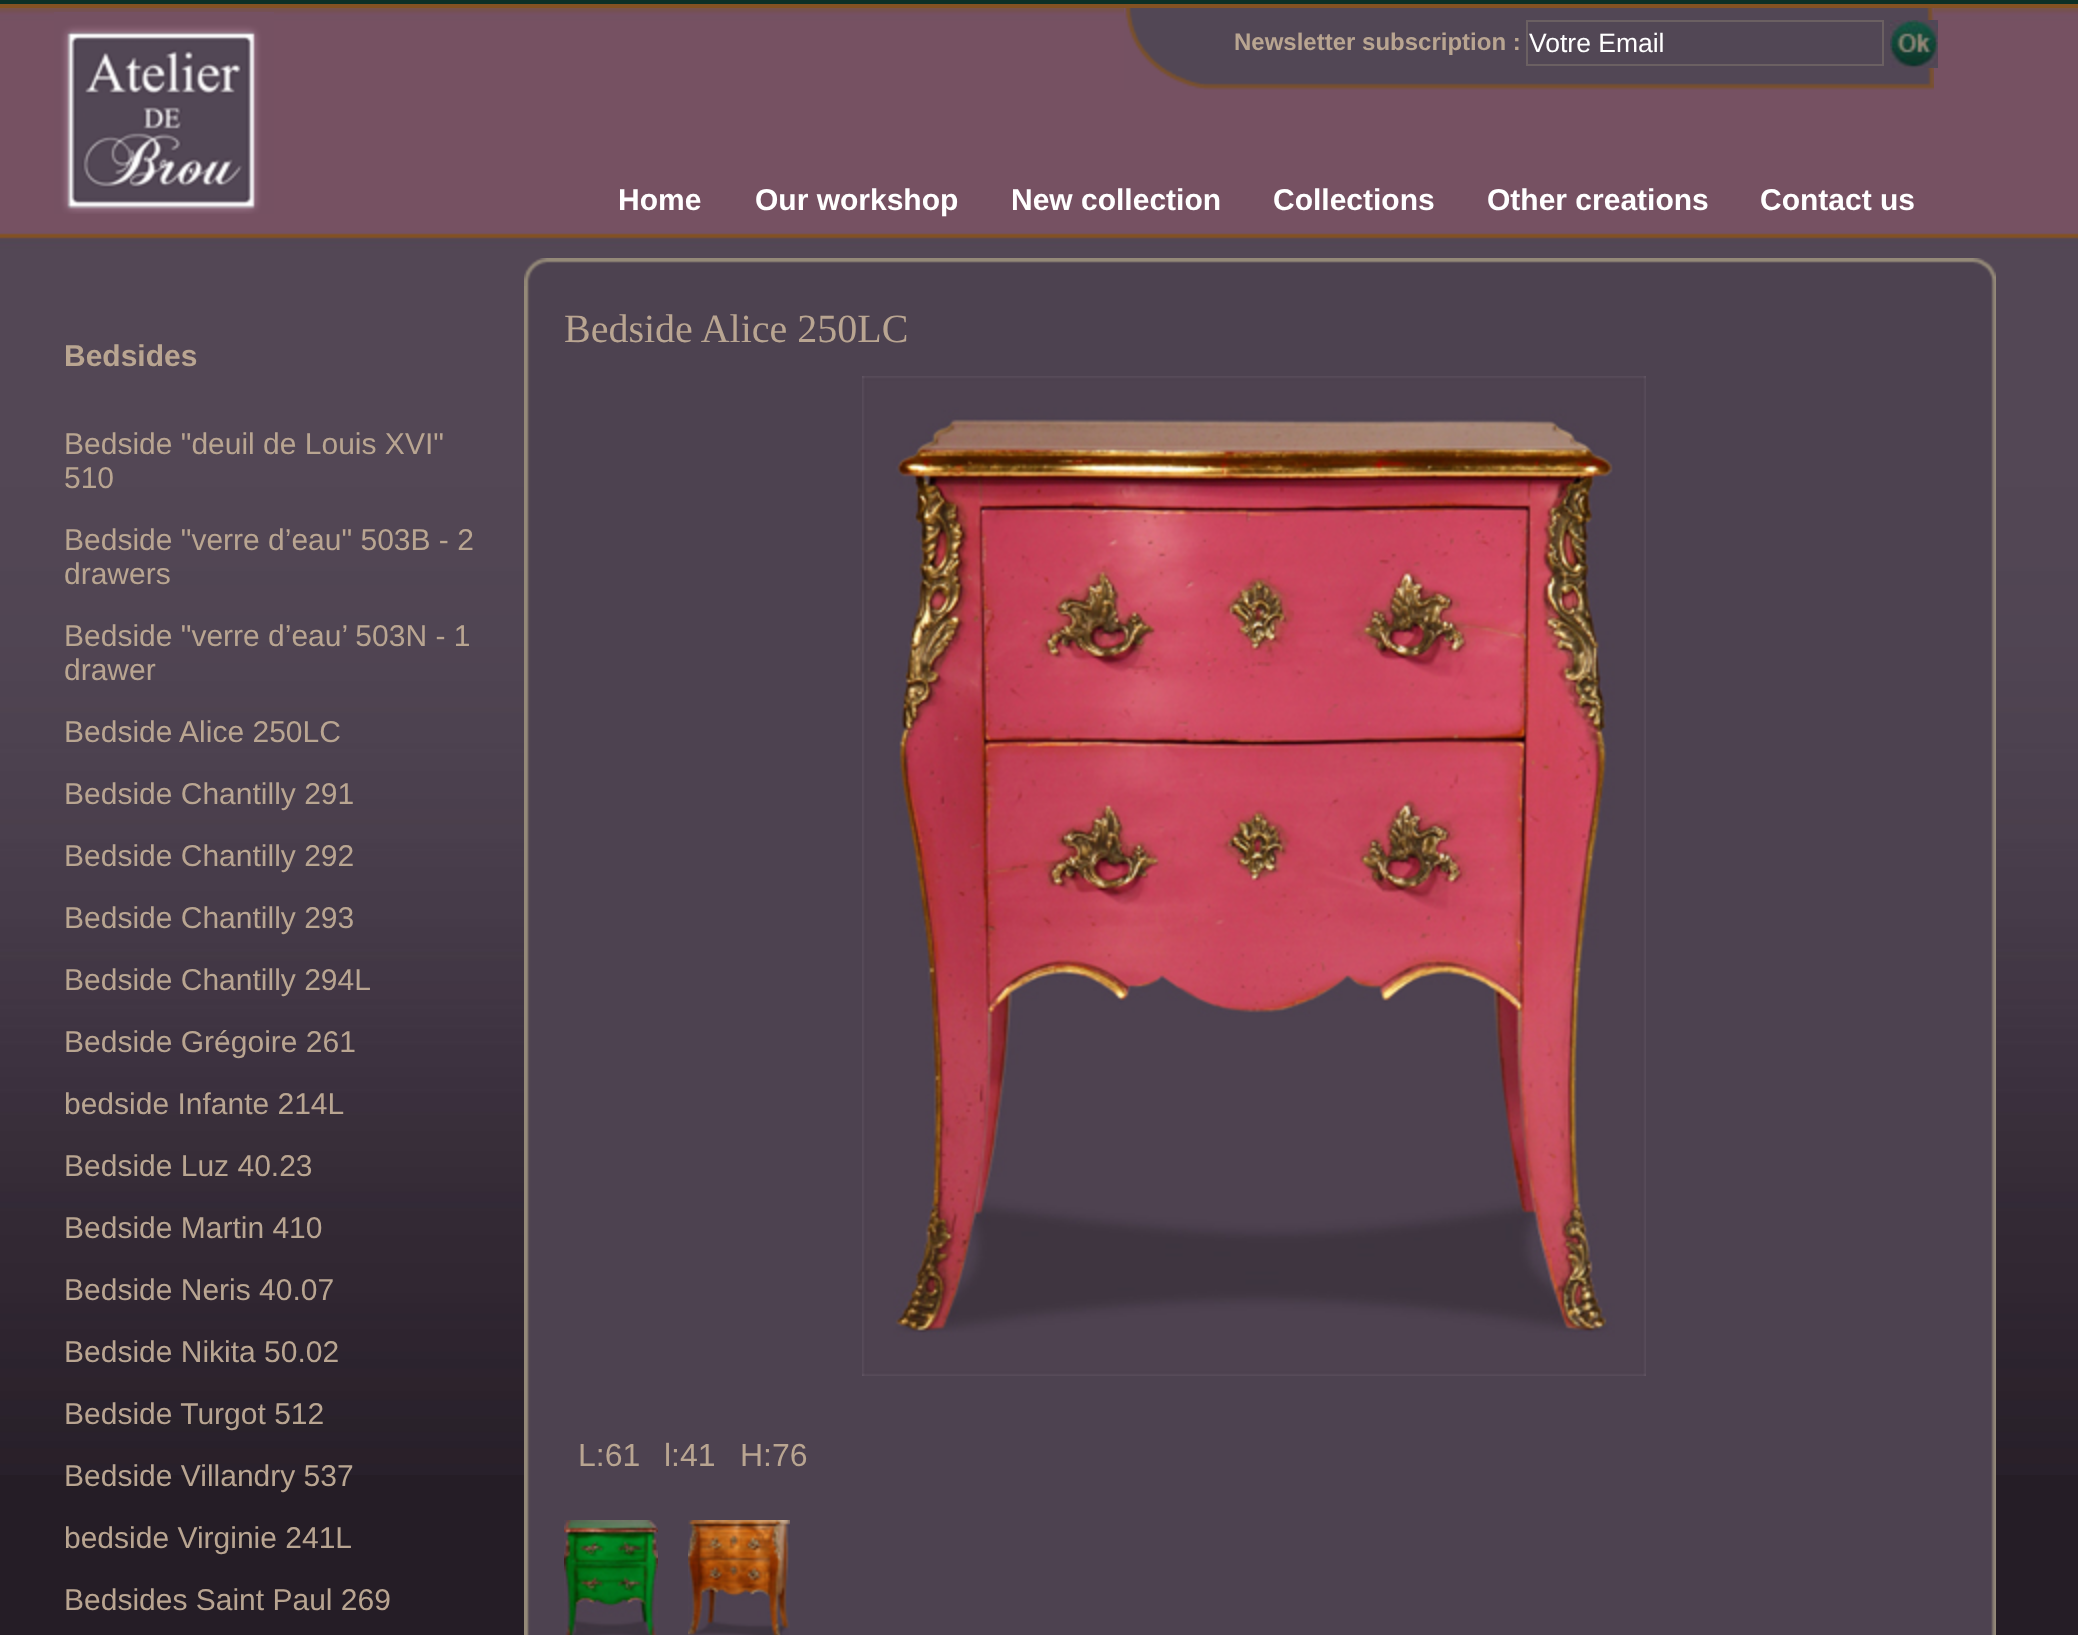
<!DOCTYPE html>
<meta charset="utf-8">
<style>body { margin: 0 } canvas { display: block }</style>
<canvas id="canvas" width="2078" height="1635"></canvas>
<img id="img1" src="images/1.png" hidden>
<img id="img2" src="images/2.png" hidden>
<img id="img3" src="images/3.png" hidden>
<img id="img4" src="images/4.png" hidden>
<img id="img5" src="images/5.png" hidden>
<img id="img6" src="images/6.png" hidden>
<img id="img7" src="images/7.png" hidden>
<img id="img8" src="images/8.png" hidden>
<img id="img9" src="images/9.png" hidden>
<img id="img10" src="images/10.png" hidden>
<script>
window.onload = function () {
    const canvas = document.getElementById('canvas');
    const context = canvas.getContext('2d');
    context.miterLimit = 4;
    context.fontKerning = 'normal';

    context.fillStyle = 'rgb(12, 48, 38)';
    context.fillRect(0, 0, 2078, 1635);
    context.fillStyle = 'rgb(37, 29, 38)';
    context.fillRect(0, 1475, 2078, 160);
    context.drawImage(document.getElementById('img1'), 0, 8, 2078, 1467);
    context.fillStyle = 'rgb(131, 82, 35)';
    context.fillRect(0, 4, 2078, 4);
    context.drawImage(document.getElementById('img2'), 44, 8, 1990, 1467);
    context.drawImage(document.getElementById('img3'), 54, 12, 220, 202);
    context.drawImage(document.getElementById('img4'), 1124, 8, 810, 82);
    context.strokeStyle = 'rgb(107, 96, 98)';
    context.lineWidth = 2;
    context.strokeRect(1527, 21, 356, 44);
    context.drawImage(document.getElementById('img5'), 1890, 20, 48, 48);
    context.drawImage(document.getElementById('img6'), 524, 258, 1472, 28);
    context.drawImage(document.getElementById('img7'), 524, 286, 1472, 1349);
    context.drawImage(document.getElementById('img8'), 862, 376, 784, 1000);
    context.drawImage(document.getElementById('img9'), 564, 1520, 94, 115);
    context.drawImage(document.getElementById('img10'), 688, 1520, 102, 115);
    context.font = 'bold 24px Liberation Sans';
    context.fillStyle = 'rgb(185, 165, 145)';
    context.fillText('Newsletter subscription :', 1234, 50);
    context.font = '26.5px Liberation Sans';
    context.fillStyle = 'rgb(255, 255, 255)';
    context.fillText('Votre Email', 1529, 52);
    context.font = 'bold 30px Liberation Sans';
    context.fillText('Home', 618, 210);
    context.fillText('Our workshop', 755, 210);
    context.fillText('New collection', 1011, 210);
    context.fillText('Collections', 1273, 210);
    context.fillText('Other creations', 1487, 210);
    context.fillText('Contact us', 1760, 210);
    context.fillStyle = 'rgb(185, 165, 145)';
    context.fillText('Bedsides', 64, 366);
    context.font = '30px Liberation Sans';
    context.fillText('Bedside "deuil de Louis XVI"', 64, 454);
    context.fillText('510', 64, 488);
    context.fillText('Bedside "verre d’eau" 503B - 2', 64, 550);
    context.fillText('drawers', 64, 584);
    context.fillText('Bedside "verre d’eau’ 503N - 1', 64, 646);
    context.fillText('drawer', 64, 680);
    context.fillText('Bedside Alice 250LC', 64, 742);
    context.fillText('Bedside Chantilly 291', 64, 804);
    context.fillText('Bedside Chantilly 292', 64, 866);
    context.fillText('Bedside Chantilly 293', 64, 928);
    context.fillText('Bedside Chantilly 294L', 64, 990);
    context.fillText('Bedside Grégoire 261', 64, 1052);
    context.fillText('bedside Infante 214L', 64, 1114);
    context.fillText('Bedside Luz 40.23', 64, 1176);
    context.fillText('Bedside Martin 410', 64, 1238);
    context.fillText('Bedside Neris 40.07', 64, 1300);
    context.fillText('Bedside Nikita 50.02', 64, 1362);
    context.fillText('Bedside Turgot 512', 64, 1424);
    context.fillText('Bedside Villandry 537', 64, 1486);
    context.fillText('bedside Virginie 241L', 64, 1548);
    context.fillText('Bedsides Saint Paul 269', 64, 1610);
    context.font = '40px Liberation Serif';
    context.fillText('Bedside Alice 250LC', 564, 342);
    context.font = '32px Liberation Sans';
    context.fillText('L:61', 578, 1466);
    context.fillText('l:41', 664, 1466);
    context.fillText('H:76', 740, 1466);
};
</script>
